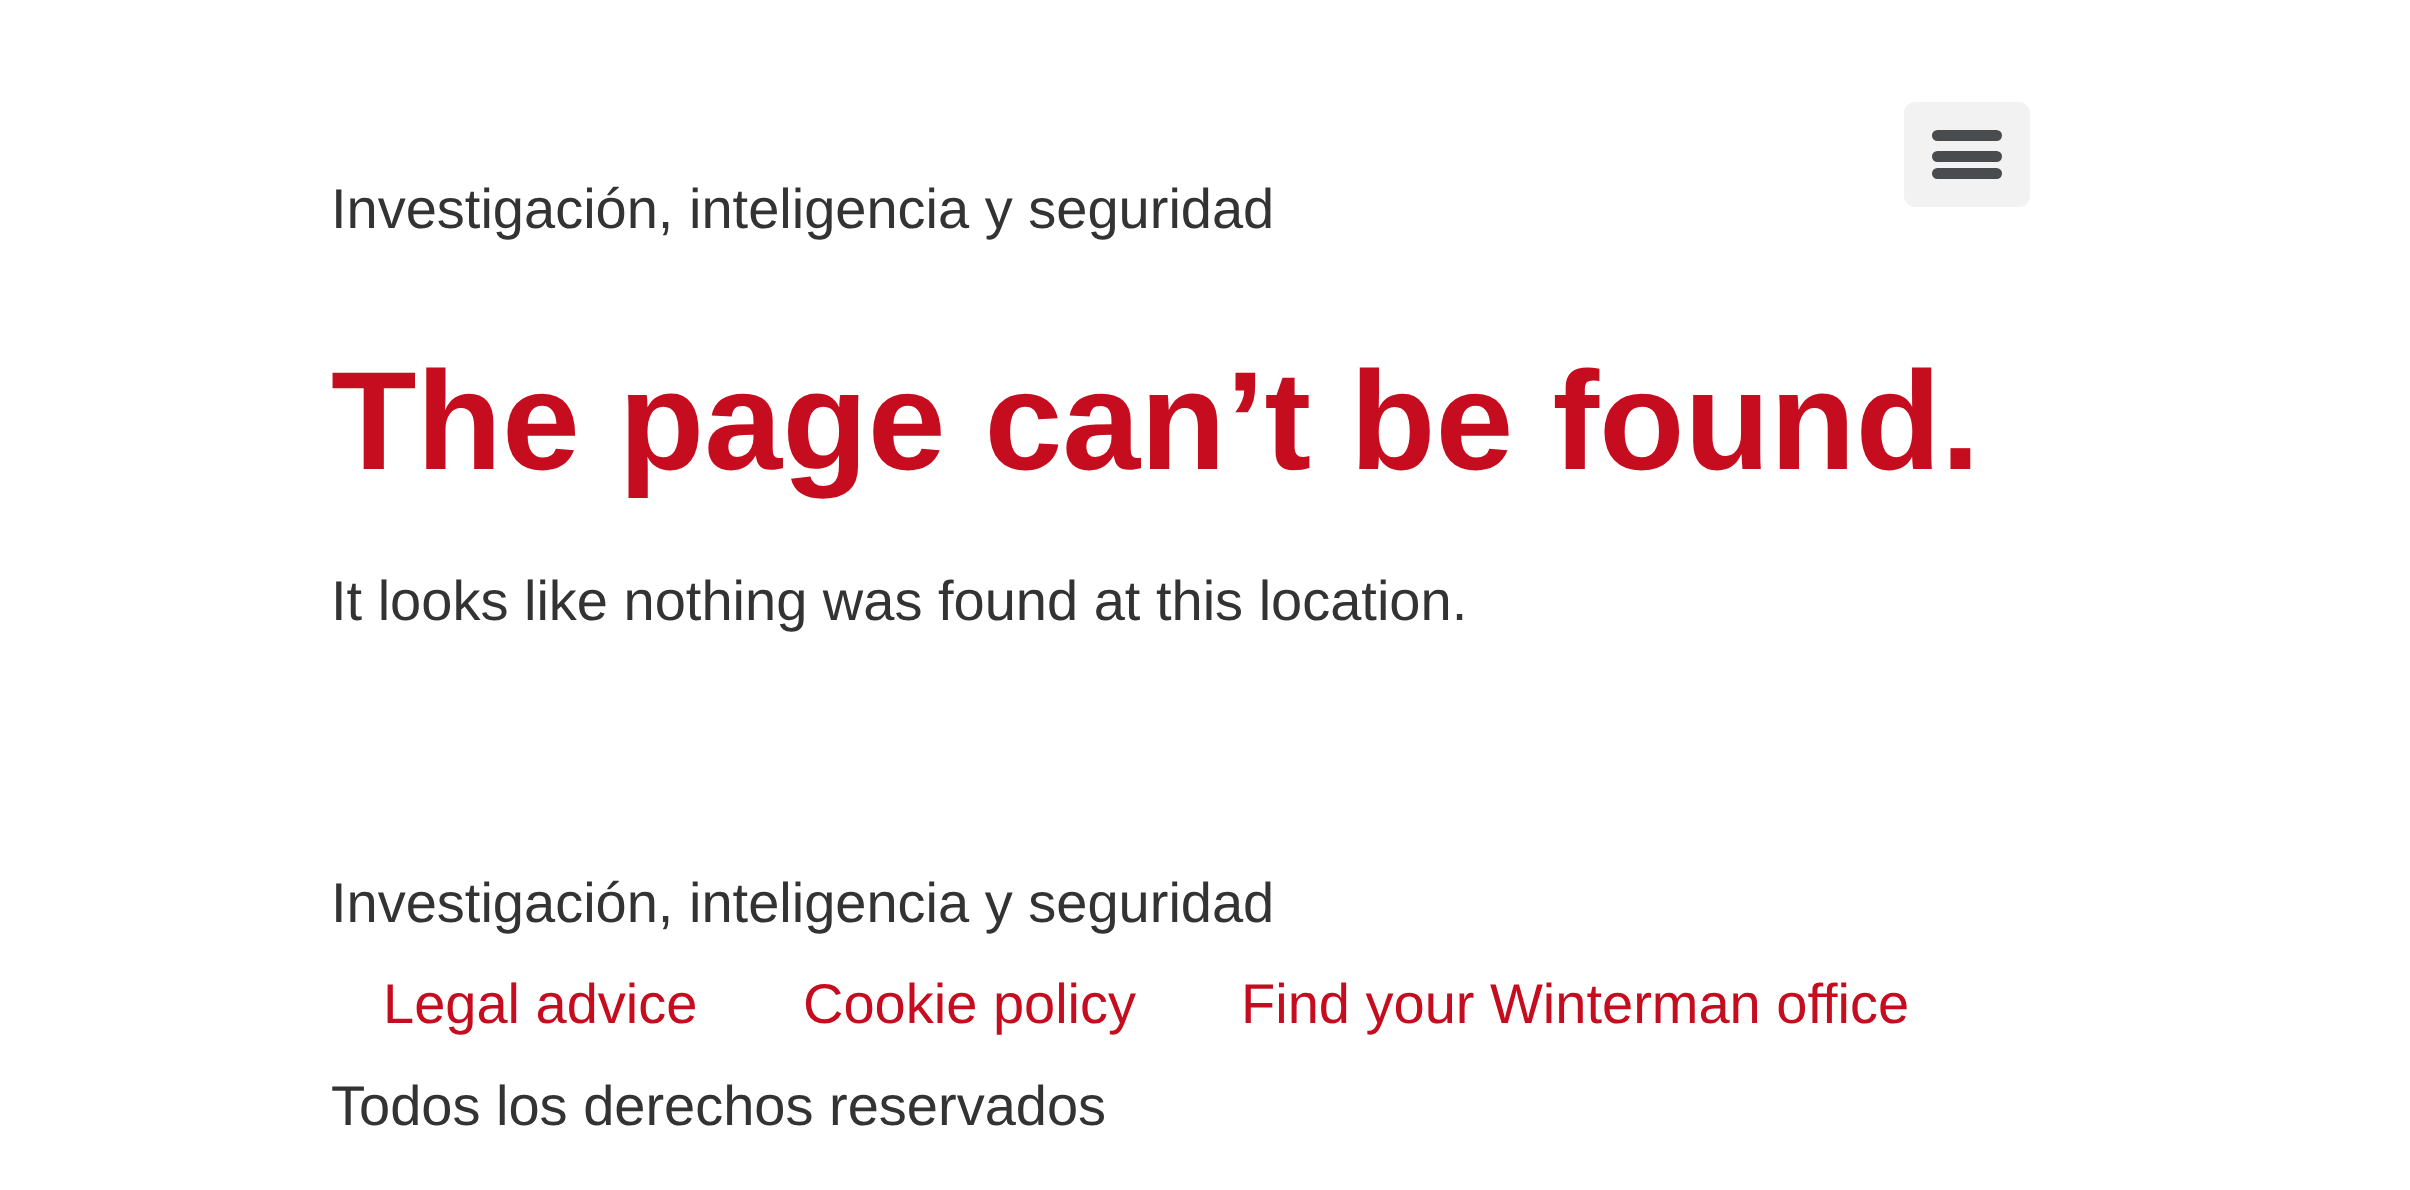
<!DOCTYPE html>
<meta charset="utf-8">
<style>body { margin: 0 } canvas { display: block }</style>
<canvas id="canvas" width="2410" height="1190"></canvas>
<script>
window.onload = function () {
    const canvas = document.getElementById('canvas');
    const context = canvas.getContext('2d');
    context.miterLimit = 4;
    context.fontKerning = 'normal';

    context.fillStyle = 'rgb(255, 255, 255)';
    context.fillRect(0, 0, 2410, 1190);
    context.fillStyle = 'rgb(242, 242, 242)';
    context.beginPath();
    context.roundRect(1904, 102, 126, 105, 11);
    context.fill();
    context.fillStyle = 'rgb(73, 76, 79)';
    context.beginPath();
    context.roundRect(1932, 151, 70, 11, 5.5);
    context.fill();
    context.beginPath();
    context.roundRect(1932, 130, 70, 11, 5.5);
    context.fill();
    context.beginPath();
    context.roundRect(1932, 168, 70, 11, 5.5);
    context.fill();
    context.font = '56px Liberation Sans';
    context.fillStyle = 'rgb(51, 51, 51)';
    context.fillText('Investigación, inteligencia y seguridad', 331, 228);
    context.font = 'bold 140px Liberation Sans';
    context.fillStyle = 'rgb(198, 12, 31)';
    context.fillText('The page can’t be found.', 331, 469);
    context.font = '56px Liberation Sans';
    context.fillStyle = 'rgb(51, 51, 51)';
    context.fillText('It looks like nothing was found at this location.', 331, 620);
    context.fillText('Investigación, inteligencia y seguridad', 331, 922);
    context.fillStyle = 'rgb(198, 12, 31)';
    context.fillText('Legal advice', 383, 1023);
    context.fillText('Cookie policy', 803, 1023);
    context.fillText('Find your Winterman office', 1241, 1023);
    context.fillStyle = 'rgb(51, 51, 51)';
    context.fillText('Todos los derechos reservados', 331, 1125);
};
</script>
